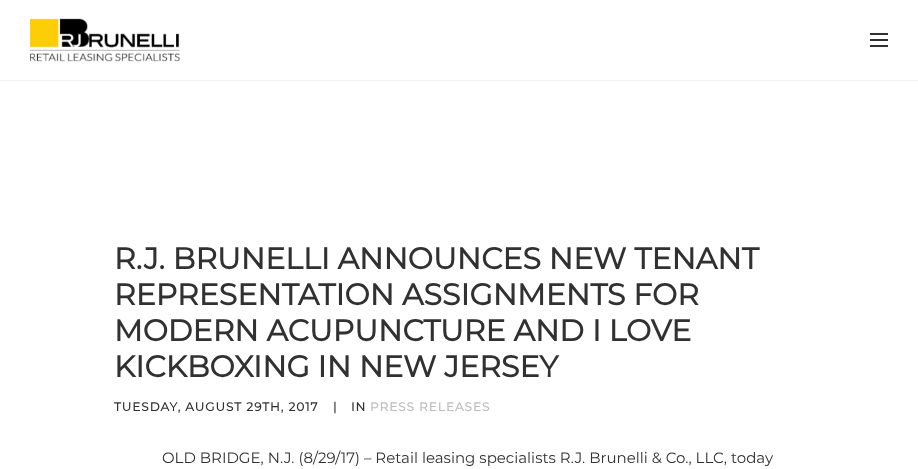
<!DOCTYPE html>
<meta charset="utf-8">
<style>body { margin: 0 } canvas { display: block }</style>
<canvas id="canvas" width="918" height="469"></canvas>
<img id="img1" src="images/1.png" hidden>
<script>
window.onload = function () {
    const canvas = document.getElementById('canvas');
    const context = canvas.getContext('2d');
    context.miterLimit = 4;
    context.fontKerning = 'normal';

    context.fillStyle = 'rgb(255, 255, 255)';
    context.fillRect(0, 0, 918, 469);
    context.fillStyle = 'rgb(242, 242, 242)';
    context.fillRect(0, 80, 918, 1);
    context.drawImage(document.getElementById('img1'), 30, 18, 150, 44);
    context.fillStyle = 'rgb(49, 49, 49)';
    context.fillRect(870, 33, 18, 2);
    context.fillRect(870, 39, 18, 2);
    context.fillRect(870, 45, 18, 2);
    context.font = 'bold 30px Montserrat';
    context.fillText('R.J. BRUNELLI ANNOUNCES NEW TENANT', 114, 269);
    context.fillText('REPRESENTATION ASSIGNMENTS FOR', 114, 305);
    context.fillText('MODERN ACUPUNCTURE AND I LOVE', 114, 341);
    context.fillText('KICKBOXING IN NEW JERSEY', 114, 377);
    context.letterSpacing = '1px';
    context.font = 'bold 12px Montserrat';
    context.fillText('TUESDAY, AUGUST 29TH, 2017', 114, 411);
    context.fillText('|', 333, 411);
    context.fillText('IN', 351, 411);
    context.fillStyle = 'rgb(189, 189, 189)';
    context.fillText('PRESS RELEASES', 370, 411);
    context.letterSpacing = '0px';
    context.font = '100 15px Montserrat';
    context.fillStyle = 'rgb(49, 49, 49)';
    context.fillText('OLD BRIDGE, N.J. (8/29/17) – Retail leasing specialists R.J. Brunelli & Co., LLC, today', 162, 463);
};
</script>
